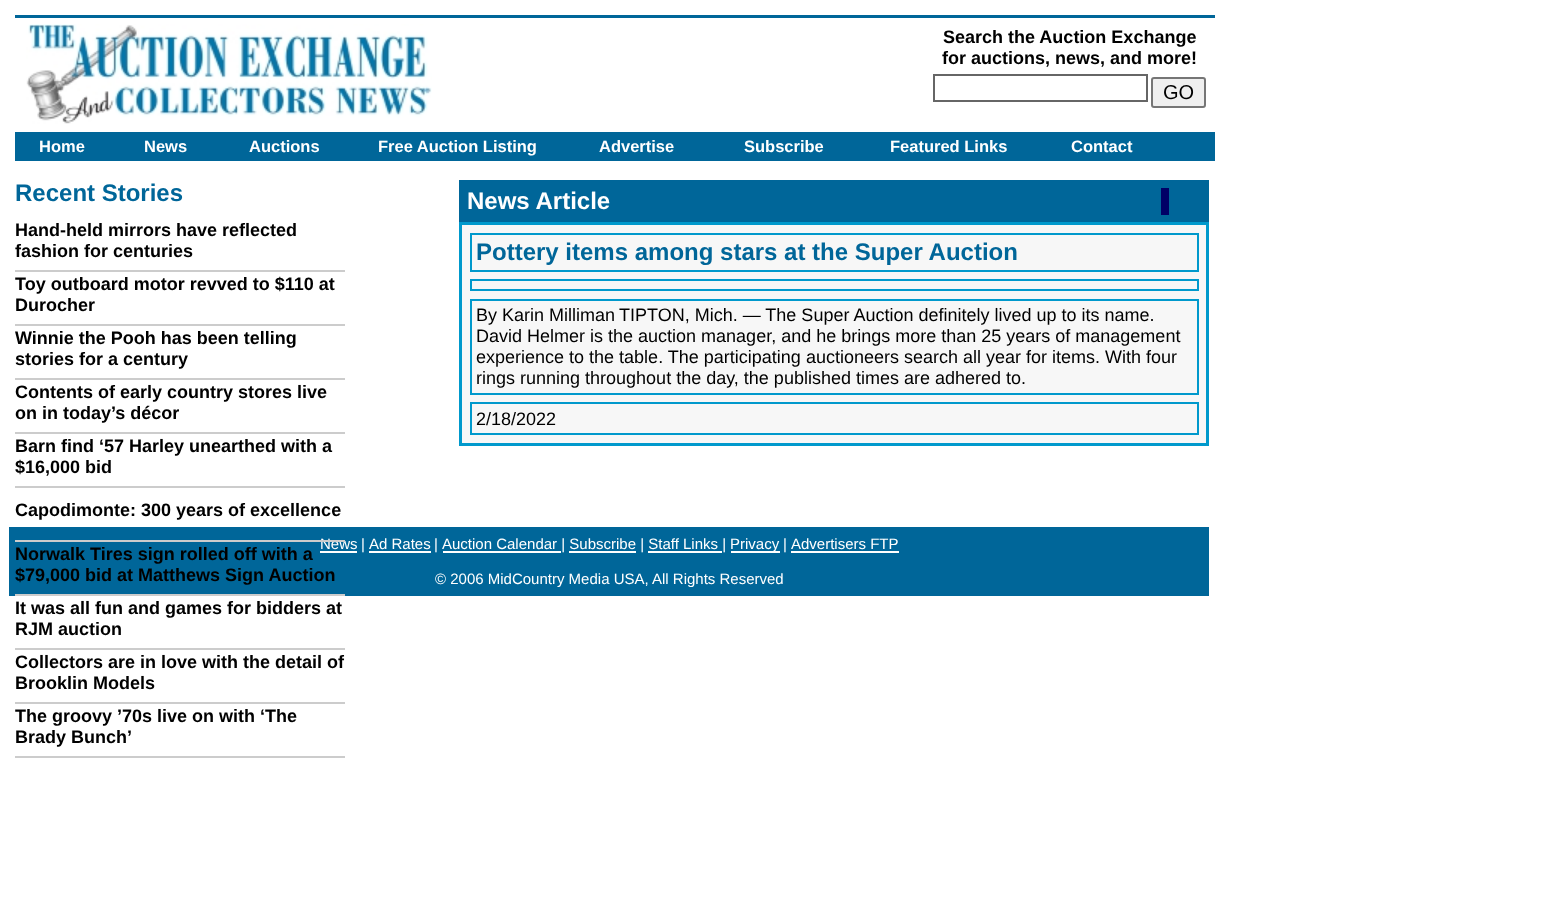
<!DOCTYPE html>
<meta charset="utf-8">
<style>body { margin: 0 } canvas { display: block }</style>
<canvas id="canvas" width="1553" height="916"></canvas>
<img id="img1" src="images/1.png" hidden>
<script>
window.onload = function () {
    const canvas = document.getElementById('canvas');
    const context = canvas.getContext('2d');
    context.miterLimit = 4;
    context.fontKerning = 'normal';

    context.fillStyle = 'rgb(255, 255, 255)';
    context.fillRect(0, 0, 1553, 916);
    context.fillStyle = 'rgb(0, 102, 153)';
    context.fillRect(15, 15, 1200, 3);
    context.drawImage(document.getElementById('img1'), 26, 24, 406, 100);
    context.strokeStyle = 'rgb(102, 102, 102)';
    context.lineWidth = 2;
    context.strokeRect(934, 75, 213, 26);
    context.fillStyle = 'rgb(239, 239, 239)';
    context.beginPath();
    context.roundRect(1152, 78, 53, 29, 2);
    context.fill();
    context.strokeStyle = 'rgb(118, 118, 118)';
    context.stroke();
    context.fillStyle = 'rgb(0, 102, 153)';
    context.fillRect(15, 132, 1200, 29);
    context.fillStyle = 'rgb(204, 204, 204)';
    context.fillRect(15, 270, 330, 2);
    context.fillRect(15, 324, 330, 2);
    context.fillRect(15, 378, 330, 2);
    context.fillRect(15, 432, 330, 2);
    context.fillRect(15, 486, 330, 2);
    context.fillStyle = 'rgb(0, 102, 153)';
    context.fillRect(9, 527, 1200, 69);
    context.fillStyle = 'rgb(204, 204, 204)';
    context.fillRect(15, 594, 330, 2);
    context.fillRect(15, 648, 330, 2);
    context.fillRect(15, 702, 330, 2);
    context.fillRect(15, 756, 330, 2);
    context.fillStyle = 'rgb(0, 102, 153)';
    context.fillRect(459, 180, 750, 42);
    context.fillStyle = 'rgb(0, 0, 102)';
    context.fillRect(1161, 188, 8, 27);
    context.fillStyle = 'rgb(247, 247, 247)';
    context.beginPath();
    context.rect(460.5, 223.5, 747, 221);
    context.fill();
    context.strokeStyle = 'rgb(0, 153, 204)';
    context.lineWidth = 3;
    context.stroke();
    context.lineWidth = 2;
    context.strokeRect(471, 234, 727, 37);
    context.strokeRect(471, 280, 727, 10);
    context.strokeRect(471, 300, 727, 94);
    context.strokeRect(471, 403, 727, 31);
    context.fillStyle = 'rgb(255, 255, 255)';
    context.fillRect(320, 551, 37, 2);
    context.fillRect(369, 551, 62, 2);
    context.fillRect(443, 551, 118, 2);
    context.fillRect(731, 551, 49, 2);
    context.fillRect(791, 551, 108, 2);
    context.fillRect(569, 551, 67, 2);
    context.fillRect(648, 551, 74, 2);
    context.font = 'bold 18px Liberation Sans';
    context.fillStyle = 'rgb(0, 0, 0)';
    context.fillText('Search the Auction Exchange', 943, 43);
    context.fillText('for auctions, news, and more!', 942, 64);
    context.font = '20px Liberation Sans';
    context.fillText('GO', 1163, 99);
    context.font = 'bold 16.5px Liberation Sans';
    context.fillStyle = 'rgb(255, 255, 255)';
    context.fillText('Home', 39, 152);
    context.fillText('News', 144, 152);
    context.fillText('Auctions', 249, 152);
    context.fillText('Free Auction Listing', 378, 152);
    context.fillText('Advertise', 599, 152);
    context.fillText('Subscribe', 744, 152);
    context.fillText('Featured Links', 890, 152);
    context.fillText('Contact', 1071, 152);
    context.font = 'bold 24px Liberation Sans';
    context.fillStyle = 'rgb(0, 102, 153)';
    context.fillText('Recent Stories', 15, 201);
    context.font = 'bold 18px Liberation Sans';
    context.fillStyle = 'rgb(0, 0, 0)';
    context.fillText('Hand-held mirrors have reflected', 15, 236);
    context.fillText('fashion for centuries', 15, 257);
    context.fillText('Toy outboard motor revved to $110 at', 15, 290);
    context.fillText('Durocher', 15, 311);
    context.fillText('Winnie the Pooh has been telling', 15, 344);
    context.fillText('stories for a century', 15, 365);
    context.fillText('Contents of early country stores live', 15, 398);
    context.fillText('on in today’s décor', 15, 419);
    context.fillText('Barn find ‘57 Harley unearthed with a', 15, 452);
    context.fillText('$16,000 bid', 15, 473);
    context.fillText('Capodimonte: 300 years of excellence', 15, 516);
    context.fillText('Norwalk Tires sign rolled off with a', 15, 560);
    context.fillText('$79,000 bid at Matthews Sign Auction', 15, 581);
    context.fillText('It was all fun and games for bidders at', 15, 614);
    context.fillText('RJM auction', 15, 635);
    context.fillText('Collectors are in love with the detail of', 15, 668);
    context.fillText('Brooklin Models', 15, 689);
    context.fillText('The groovy ’70s live on with ‘The', 15, 722);
    context.fillText('Brady Bunch’', 15, 743);
    context.font = 'bold 24px Liberation Sans';
    context.fillStyle = 'rgb(255, 255, 255)';
    context.fillText('News Article', 467, 209);
    context.fillStyle = 'rgb(0, 102, 153)';
    context.fillText('Pottery items among stars at the Super Auction', 476, 260);
    context.font = '18px Liberation Sans';
    context.fillStyle = 'rgb(0, 0, 0)';
    context.fillText('By Karin Milliman', 476, 321);
    context.fillText('TIPTON, Mich. — The Super Auction definitely lived up to its name.', 619, 321);
    context.fillText('David Helmer is the auction manager, and he brings more than 25 years of management', 476, 342);
    context.fillText('experience to the table. The participating auctioneers search all year for items. With four', 476, 363);
    context.fillText('rings running throughout the day, the published times are adhered to.', 476, 384);
    context.fillText('2/18/2022', 476, 425);
    context.font = '15px Liberation Sans';
    context.fillStyle = 'rgb(255, 255, 255)';
    context.fillText('News', 320, 549);
    context.fillStyle = 'rgb(204, 204, 204)';
    context.fillRect(15, 540, 330, 2);
    context.fillStyle = 'rgb(255, 255, 255)';
    context.fillText('|', 361, 549);
    context.fillText('Ad Rates', 369, 549);
    context.fillText('|', 434, 549);
    context.fillText('Auction Calendar | Subscribe | Staff Links |', 442, 549);
    context.fillText('Privacy', 730, 549);
    context.fillText('|', 783, 549);
    context.fillText('Advertisers FTP', 791, 549);
    context.fillText('© 2006 MidCountry Media USA, All Rights Reserved', 435, 584);
};
</script>
